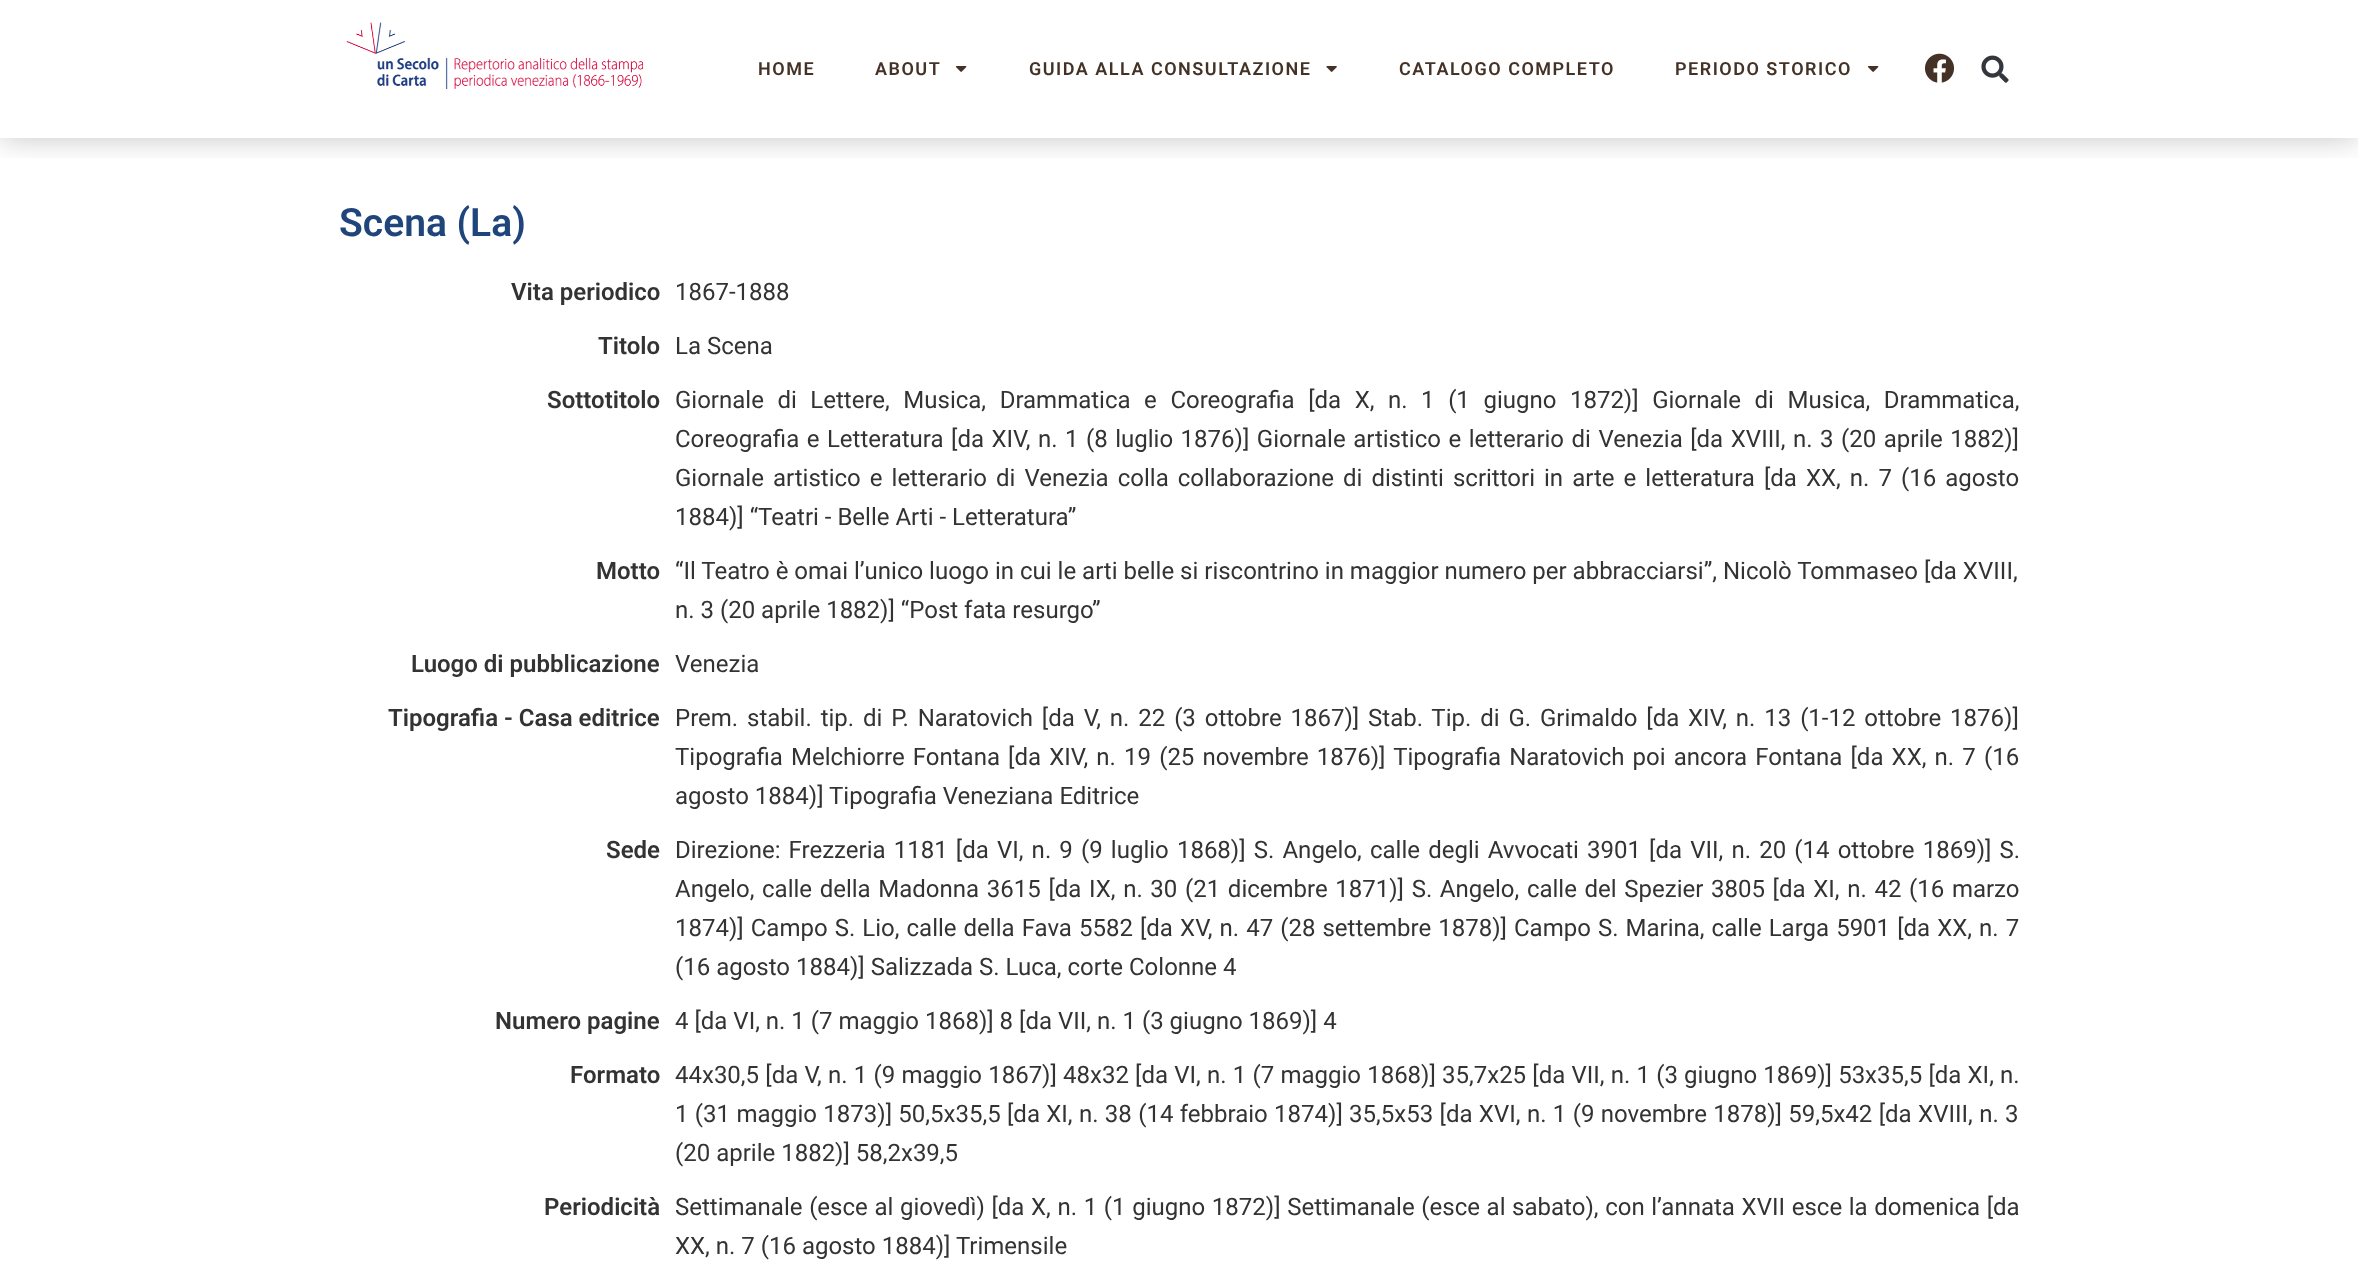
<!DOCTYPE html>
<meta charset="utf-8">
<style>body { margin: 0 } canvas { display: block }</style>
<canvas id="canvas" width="2358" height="1278"></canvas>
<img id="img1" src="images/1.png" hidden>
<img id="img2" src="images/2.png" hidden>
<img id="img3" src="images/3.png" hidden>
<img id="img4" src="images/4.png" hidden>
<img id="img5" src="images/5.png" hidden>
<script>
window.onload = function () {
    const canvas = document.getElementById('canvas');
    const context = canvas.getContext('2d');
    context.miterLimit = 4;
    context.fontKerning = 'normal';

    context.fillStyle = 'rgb(255, 255, 255)';
    context.fillRect(0, 0, 2358, 1278);
    context.save();
    context.beginPath();
    context.rect(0, 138, 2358, 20);
    context.clip();
    context.fillStyle = 'rgba(0, 0, 0, 0.23)';
    context.filter = 'blur(15px)';
    context.beginPath();
    context.rect(0, 0, 2358, 138);
    context.fill();
    context.filter = 'none';
    context.restore();
    context.drawImage(document.getElementById('img1'), 346, 22, 298, 68);
    context.drawImage(document.getElementById('img2'), 955, 66, 12, 6);
    context.drawImage(document.getElementById('img3'), 1326, 66, 11, 6);
    context.drawImage(document.getElementById('img2'), 1867, 66, 12, 6);
    context.drawImage(document.getElementById('img4'), 1925, 53, 29, 30);
    context.drawImage(document.getElementById('img5'), 1981, 55, 28, 28);
    context.letterSpacing = '1.5px';
    context.font = '600 18px Roboto';
    context.fillStyle = 'rgb(68, 50, 39)';
    context.fillText('HOME', 758, 75);
    context.fillText('ABOUT', 875, 75);
    context.fillText('GUIDA ALLA CONSULTAZIONE', 1029, 75);
    context.fillText('CATALOGO COMPLETO', 1399, 75);
    context.fillText('PERIODO STORICO', 1675, 75);
    context.letterSpacing = '0px';
    context.font = '600 39px Roboto';
    context.fillStyle = 'rgb(31, 69, 123)';
    context.fillText('Scena (La)', 339, 236);
    context.font = '600 24px Roboto';
    context.fillStyle = 'rgb(51, 51, 51)';
    context.fillText('Vita periodico', 511, 300);
    context.font = '24px Roboto';
    context.fillText('1867-1888', 675, 300);
    context.font = '600 24px Roboto';
    context.fillText('Titolo', 598, 354);
    context.font = '24px Roboto';
    context.fillText('La Scena', 675, 354);
    context.font = '600 24px Roboto';
    context.fillText('Sottotitolo', 547, 408);
    context.wordSpacing = '7.6px';
    context.font = '24px Roboto';
    context.fillText('Giornale di Lettere, Musica, Drammatica e Coreografia [da X, n. 1 (1 giugno 1872)] Giornale di Musica, Drammatica,', 675, 408);
    context.wordSpacing = '1.55px';
    context.fillText('Coreografia e Letteratura [da XIV, n. 1 (8 luglio 1876)] Giornale artistico e letterario di Venezia [da XVIII, n. 3 (20 aprile 1882)]', 675, 447);
    context.wordSpacing = '3.1px';
    context.fillText('Giornale artistico e letterario di Venezia colla collaborazione di distinti scrittori in arte e letteratura [da XX, n. 7 (16 agosto', 675, 486);
    context.wordSpacing = '0px';
    context.fillText('1884)] “Teatri - Belle Arti - Letteratura”', 675, 525);
    context.font = '600 24px Roboto';
    context.fillText('Motto', 596, 579);
    context.font = '24px Roboto';
    context.fillText('“Il Teatro è omai l’unico luogo in cui le arti belle si riscontrino in maggior numero per abbracciarsi”, Nicolò Tommaseo [da XVIII,', 675, 579);
    context.fillText('n. 3 (20 aprile 1882)] “Post fata resurgo”', 675, 618);
    context.font = '600 24px Roboto';
    context.fillText('Luogo di pubblicazione', 411, 672);
    context.font = '24px Roboto';
    context.fillText('Venezia', 675, 672);
    context.font = '600 24px Roboto';
    context.fillText('Tipografia - Casa editrice', 388, 726);
    context.wordSpacing = '2.9px';
    context.font = '24px Roboto';
    context.fillText('Prem. stabil. tip. di P. Naratovich [da V, n. 22 (3 ottobre 1867)] Stab. Tip. di G. Grimaldo [da XIV, n. 13 (1-12 ottobre 1876)]', 675, 726);
    context.wordSpacing = '2.2px';
    context.fillText('Tipografia Melchiorre Fontana [da XIV, n. 19 (25 novembre 1876)] Tipografia Naratovich poi ancora Fontana [da XX, n. 7 (16', 675, 765);
    context.wordSpacing = '0px';
    context.fillText('agosto 1884)] Tipografia Veneziana Editrice', 675, 804);
    context.font = '600 24px Roboto';
    context.fillText('Sede', 606, 858);
    context.wordSpacing = '2.2px';
    context.font = '24px Roboto';
    context.fillText('Direzione: Frezzeria 1181 [da VI, n. 9 (9 luglio 1868)] S. Angelo, calle degli Avvocati 3901 [da VII, n. 20 (14 ottobre 1869)] S.', 675, 858);
    context.wordSpacing = '1.7px';
    context.fillText('Angelo, calle della Madonna 3615 [da IX, n. 30 (21 dicembre 1871)] S. Angelo, calle del Spezier 3805 [da XI, n. 42 (16 marzo', 675, 897);
    context.wordSpacing = '1.1px';
    context.fillText('1874)] Campo S. Lio, calle della Fava 5582 [da XV, n. 47 (28 settembre 1878)] Campo S. Marina, calle Larga 5901 [da XX, n. 7', 675, 936);
    context.wordSpacing = '0px';
    context.fillText('(16 agosto 1884)] Salizzada S. Luca, corte Colonne 4', 675, 975);
    context.font = '600 24px Roboto';
    context.fillText('Numero pagine', 495, 1029);
    context.font = '24px Roboto';
    context.fillText('4 [da VI, n. 1 (7 maggio 1868)] 8 [da VII, n. 1 (3 giugno 1869)] 4', 675, 1029);
    context.font = '600 24px Roboto';
    context.fillText('Formato', 570, 1083);
    context.wordSpacing = '0.25px';
    context.font = '24px Roboto';
    context.fillText('44x30,5 [da V, n. 1 (9 maggio 1867)] 48x32 [da VI, n. 1 (7 maggio 1868)] 35,7x25 [da VII, n. 1 (3 giugno 1869)] 53x35,5 [da XI, n.', 675, 1083);
    context.wordSpacing = '0.4px';
    context.fillText('1 (31 maggio 1873)] 50,5x35,5 [da XI, n. 38 (14 febbraio 1874)] 35,5x53 [da XVI, n. 1 (9 novembre 1878)] 59,5x42 [da XVIII, n. 3', 675, 1122);
    context.wordSpacing = '0px';
    context.fillText('(20 aprile 1882)] 58,2x39,5', 675, 1161);
    context.font = '600 24px Roboto';
    context.fillText('Periodicità', 544, 1215);
    context.wordSpacing = '0.7px';
    context.font = '24px Roboto';
    context.fillText('Settimanale (esce al giovedì) [da X, n. 1 (1 giugno 1872)] Settimanale (esce al sabato), con l’annata XVII esce la domenica [da', 675, 1215);
    context.wordSpacing = '0px';
    context.fillText('XX, n. 7 (16 agosto 1884)] Trimensile', 675, 1254);
};
</script>
